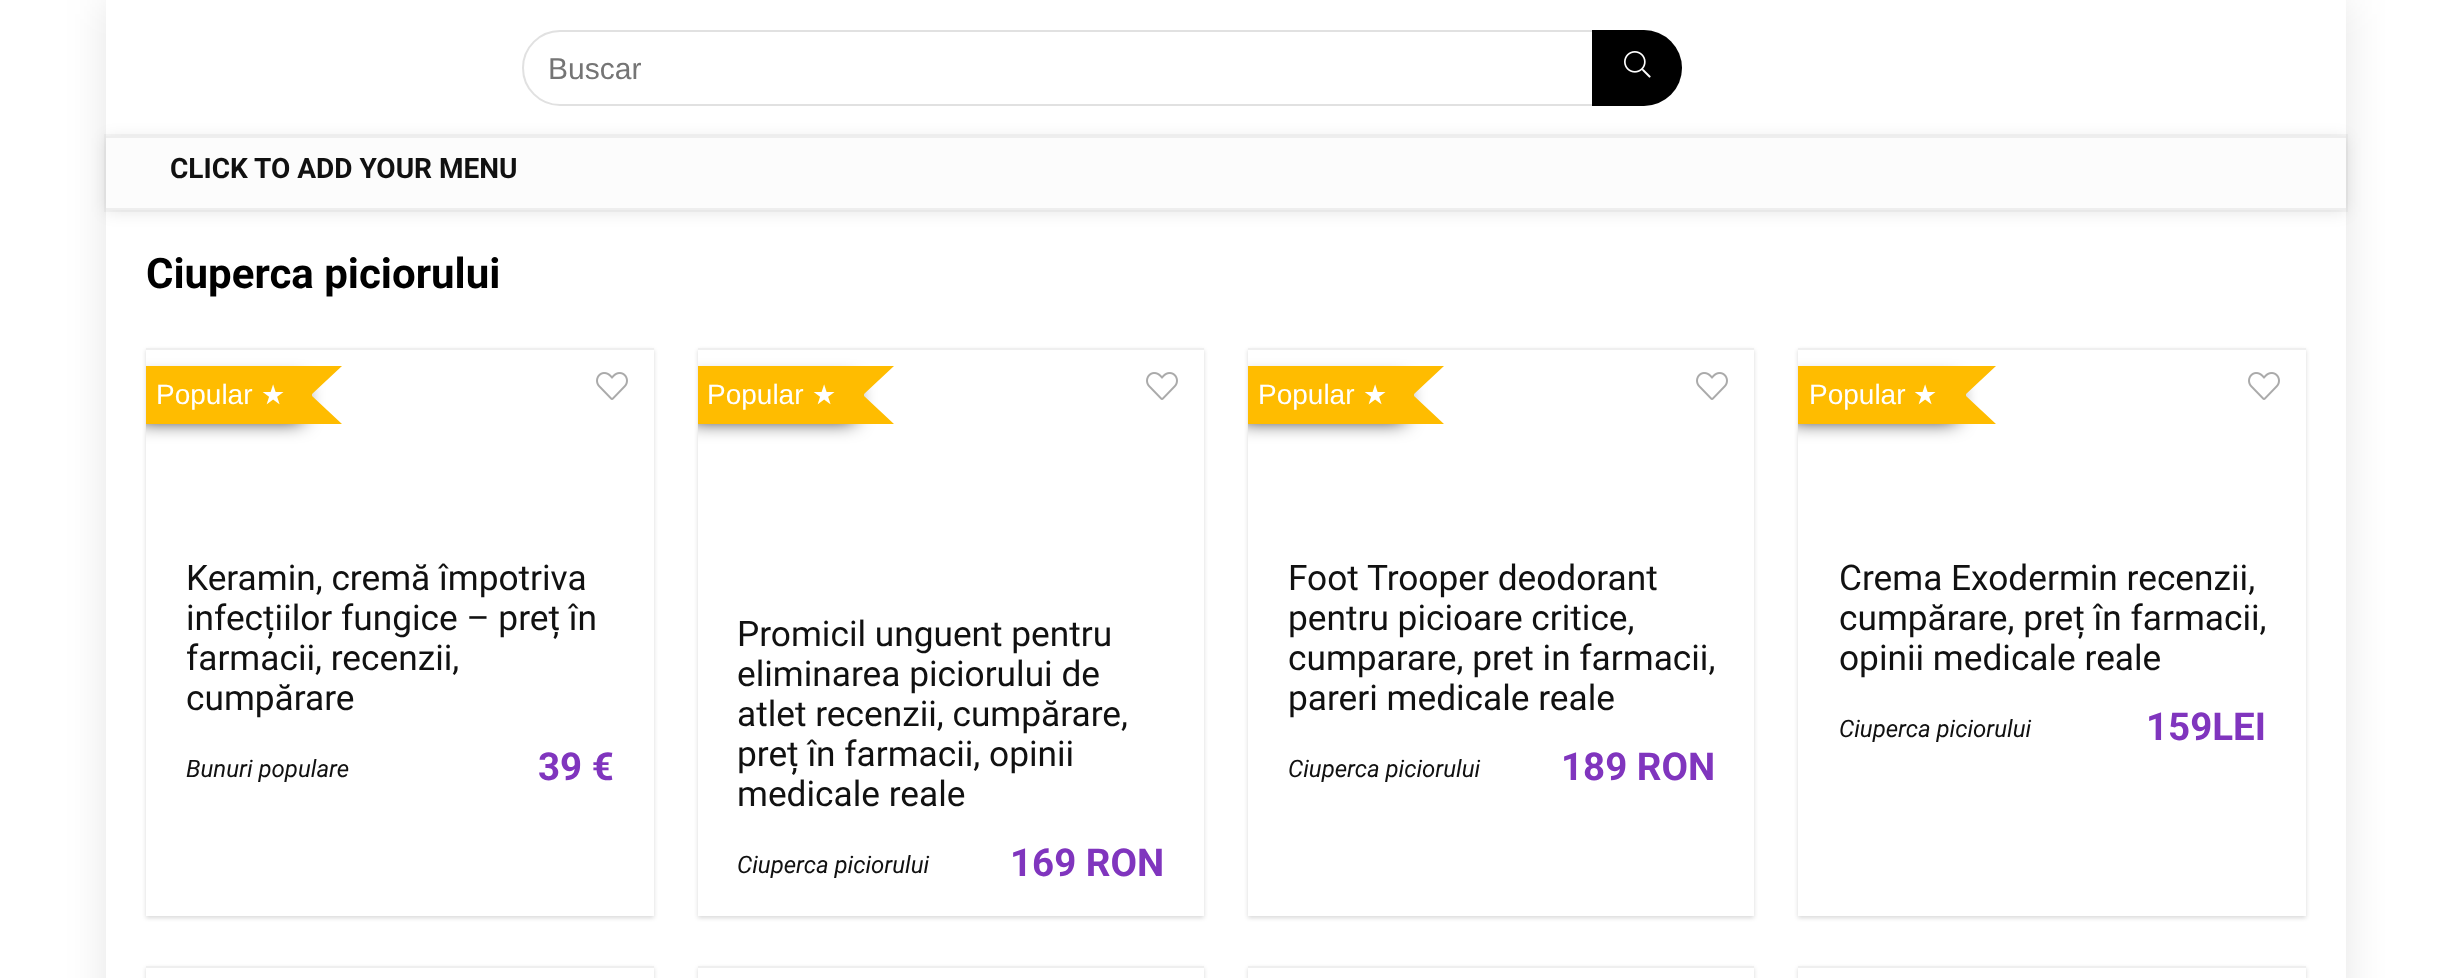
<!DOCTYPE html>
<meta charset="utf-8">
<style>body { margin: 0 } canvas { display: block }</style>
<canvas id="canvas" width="2452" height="978"></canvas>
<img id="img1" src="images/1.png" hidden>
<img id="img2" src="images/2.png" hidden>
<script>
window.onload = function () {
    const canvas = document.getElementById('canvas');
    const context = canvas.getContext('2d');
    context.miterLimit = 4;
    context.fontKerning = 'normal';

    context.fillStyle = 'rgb(255, 255, 255)';
    context.fillRect(0, 0, 2452, 978);
    context.save();
    context.beginPath();
    context.moveTo(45, 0);
    context.lineTo(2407, 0);
    context.lineTo(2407, 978);
    context.lineTo(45, 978);
    context.closePath();
    context.moveTo(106, 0);
    context.lineTo(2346, 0);
    context.lineTo(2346, 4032);
    context.lineTo(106, 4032);
    context.closePath();
    context.clip('evenodd');
    context.fillStyle = 'rgba(0, 0, 0, 0.1)';
    context.filter = 'blur(20px)';
    context.beginPath();
    context.rect(106, 0, 2240, 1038);
    context.fill();
    context.filter = 'none';
    context.restore();
    context.beginPath();
    context.roundRect(523, 31, 1158, 74, 37);
    context.strokeStyle = 'rgb(225, 225, 225)';
    context.lineWidth = 2;
    context.stroke();
    context.fillStyle = 'rgb(0, 0, 0)';
    context.beginPath();
    context.roundRect(1592, 30, 90, 76, [0, 38, 38, 0]);
    context.fill();
    context.drawImage(document.getElementById('img1'), 1624, 51, 27, 27);
    context.strokeStyle = 'rgba(0, 0, 0, 0.03)';
    context.strokeRect(105, 135, 2242, 76);
    context.fillStyle = 'rgba(0, 0, 0, 0.1)';
    context.filter = 'blur(8px)';
    context.beginPath();
    context.rect(106, 138, 2240, 74);
    context.fill();
    context.filter = 'none';
    context.fillStyle = 'rgb(252, 252, 252)';
    context.fillRect(106, 138, 2240, 70);
    context.fillStyle = 'rgb(238, 238, 238)';
    context.fillRect(106, 136, 2240, 2);
    context.fillRect(106, 208, 2240, 2);
    context.save();
    context.beginPath();
    context.moveTo(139, 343);
    context.lineTo(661, 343);
    context.lineTo(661, 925);
    context.lineTo(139, 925);
    context.closePath();
    context.moveTo(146, 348);
    context.lineTo(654, 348);
    context.lineTo(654, 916);
    context.lineTo(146, 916);
    context.closePath();
    context.clip('evenodd');
    context.fillStyle = 'rgba(0, 0, 0, 0.15)';
    context.filter = 'blur(2px)';
    context.beginPath();
    context.rect(146, 350, 508, 568);
    context.fill();
    context.filter = 'none';
    context.restore();
    context.fillStyle = 'rgb(239, 239, 239)';
    context.fillRect(146, 348, 508, 2);
    context.save();
    context.beginPath();
    context.rect(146, 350, 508, 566);
    context.clip();
    context.fillStyle = 'rgb(0, 0, 0)';
    context.filter = 'blur(10px)';
    context.beginPath();
    context.rect(138, 382, 164, 38);
    context.fill();
    context.filter = 'none';
    context.restore();
    context.fillStyle = 'rgb(255, 188, 0)';
    context.fillRect(146, 366, 166, 58);
    context.beginPath();
    context.moveTo(312, 366);
    context.lineTo(342, 366);
    context.lineTo(312, 394);
    context.closePath();
    context.moveTo(342, 424);
    context.lineTo(312, 424);
    context.lineTo(312, 396);
    context.closePath();
    context.fill();
    context.drawImage(document.getElementById('img2'), 596, 372, 32, 28);
    context.save();
    context.beginPath();
    context.moveTo(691, 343);
    context.lineTo(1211, 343);
    context.lineTo(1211, 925);
    context.lineTo(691, 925);
    context.closePath();
    context.moveTo(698, 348);
    context.lineTo(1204, 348);
    context.lineTo(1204, 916);
    context.lineTo(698, 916);
    context.closePath();
    context.clip('evenodd');
    context.fillStyle = 'rgba(0, 0, 0, 0.15)';
    context.filter = 'blur(2px)';
    context.beginPath();
    context.rect(698, 350, 506, 568);
    context.fill();
    context.filter = 'none';
    context.restore();
    context.fillStyle = 'rgb(239, 239, 239)';
    context.fillRect(698, 348, 506, 2);
    context.save();
    context.beginPath();
    context.rect(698, 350, 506, 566);
    context.clip();
    context.fillStyle = 'rgb(0, 0, 0)';
    context.filter = 'blur(10px)';
    context.beginPath();
    context.rect(690, 382, 164, 38);
    context.fill();
    context.filter = 'none';
    context.restore();
    context.fillStyle = 'rgb(255, 188, 0)';
    context.fillRect(698, 366, 166, 58);
    context.beginPath();
    context.moveTo(864, 366);
    context.lineTo(894, 366);
    context.lineTo(864, 394);
    context.closePath();
    context.moveTo(894, 424);
    context.lineTo(864, 424);
    context.lineTo(864, 396);
    context.closePath();
    context.fill();
    context.drawImage(document.getElementById('img2'), 1146, 372, 32, 28);
    context.save();
    context.beginPath();
    context.moveTo(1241, 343);
    context.lineTo(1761, 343);
    context.lineTo(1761, 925);
    context.lineTo(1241, 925);
    context.closePath();
    context.moveTo(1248, 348);
    context.lineTo(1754, 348);
    context.lineTo(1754, 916);
    context.lineTo(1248, 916);
    context.closePath();
    context.clip('evenodd');
    context.fillStyle = 'rgba(0, 0, 0, 0.15)';
    context.filter = 'blur(2px)';
    context.beginPath();
    context.rect(1248, 350, 506, 568);
    context.fill();
    context.filter = 'none';
    context.restore();
    context.fillStyle = 'rgb(239, 239, 239)';
    context.fillRect(1248, 348, 506, 2);
    context.save();
    context.beginPath();
    context.rect(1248, 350, 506, 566);
    context.clip();
    context.fillStyle = 'rgb(0, 0, 0)';
    context.filter = 'blur(10px)';
    context.beginPath();
    context.rect(1240, 382, 164, 38);
    context.fill();
    context.filter = 'none';
    context.restore();
    context.fillStyle = 'rgb(255, 188, 0)';
    context.fillRect(1248, 366, 166, 58);
    context.beginPath();
    context.moveTo(1414, 366);
    context.lineTo(1444, 366);
    context.lineTo(1414, 394);
    context.closePath();
    context.moveTo(1444, 424);
    context.lineTo(1414, 424);
    context.lineTo(1414, 396);
    context.closePath();
    context.fill();
    context.drawImage(document.getElementById('img2'), 1696, 372, 32, 28);
    context.save();
    context.beginPath();
    context.moveTo(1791, 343);
    context.lineTo(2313, 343);
    context.lineTo(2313, 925);
    context.lineTo(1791, 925);
    context.closePath();
    context.moveTo(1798, 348);
    context.lineTo(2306, 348);
    context.lineTo(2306, 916);
    context.lineTo(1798, 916);
    context.closePath();
    context.clip('evenodd');
    context.fillStyle = 'rgba(0, 0, 0, 0.15)';
    context.filter = 'blur(2px)';
    context.beginPath();
    context.rect(1798, 350, 508, 568);
    context.fill();
    context.filter = 'none';
    context.restore();
    context.fillStyle = 'rgb(239, 239, 239)';
    context.fillRect(1798, 348, 508, 2);
    context.save();
    context.beginPath();
    context.rect(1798, 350, 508, 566);
    context.clip();
    context.fillStyle = 'rgb(0, 0, 0)';
    context.filter = 'blur(10px)';
    context.beginPath();
    context.rect(1790, 382, 166, 38);
    context.fill();
    context.filter = 'none';
    context.restore();
    context.fillStyle = 'rgb(255, 188, 0)';
    context.fillRect(1798, 366, 168, 58);
    context.beginPath();
    context.moveTo(1966, 366);
    context.lineTo(1996, 366);
    context.lineTo(1966, 394);
    context.closePath();
    context.moveTo(1996, 424);
    context.lineTo(1966, 424);
    context.lineTo(1966, 396);
    context.closePath();
    context.fill();
    context.drawImage(document.getElementById('img2'), 2248, 372, 32, 28);
    context.save();
    context.beginPath();
    context.moveTo(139, 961);
    context.lineTo(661, 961);
    context.lineTo(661, 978);
    context.lineTo(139, 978);
    context.closePath();
    context.moveTo(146, 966);
    context.lineTo(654, 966);
    context.lineTo(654, 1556);
    context.lineTo(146, 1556);
    context.closePath();
    context.clip('evenodd');
    context.fillStyle = 'rgba(0, 0, 0, 0.15)';
    context.filter = 'blur(2px)';
    context.beginPath();
    context.rect(146, 968, 508, 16);
    context.fill();
    context.filter = 'none';
    context.restore();
    context.fillStyle = 'rgb(239, 239, 239)';
    context.fillRect(146, 966, 508, 2);
    context.save();
    context.beginPath();
    context.moveTo(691, 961);
    context.lineTo(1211, 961);
    context.lineTo(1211, 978);
    context.lineTo(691, 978);
    context.closePath();
    context.moveTo(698, 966);
    context.lineTo(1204, 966);
    context.lineTo(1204, 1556);
    context.lineTo(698, 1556);
    context.closePath();
    context.clip('evenodd');
    context.fillStyle = 'rgba(0, 0, 0, 0.15)';
    context.filter = 'blur(2px)';
    context.beginPath();
    context.rect(698, 968, 506, 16);
    context.fill();
    context.filter = 'none';
    context.restore();
    context.fillRect(698, 966, 506, 2);
    context.save();
    context.beginPath();
    context.moveTo(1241, 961);
    context.lineTo(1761, 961);
    context.lineTo(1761, 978);
    context.lineTo(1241, 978);
    context.closePath();
    context.moveTo(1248, 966);
    context.lineTo(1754, 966);
    context.lineTo(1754, 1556);
    context.lineTo(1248, 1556);
    context.closePath();
    context.clip('evenodd');
    context.fillStyle = 'rgba(0, 0, 0, 0.15)';
    context.filter = 'blur(2px)';
    context.beginPath();
    context.rect(1248, 968, 506, 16);
    context.fill();
    context.filter = 'none';
    context.restore();
    context.fillRect(1248, 966, 506, 2);
    context.save();
    context.beginPath();
    context.moveTo(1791, 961);
    context.lineTo(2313, 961);
    context.lineTo(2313, 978);
    context.lineTo(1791, 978);
    context.closePath();
    context.moveTo(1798, 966);
    context.lineTo(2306, 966);
    context.lineTo(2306, 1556);
    context.lineTo(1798, 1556);
    context.closePath();
    context.clip('evenodd');
    context.fillStyle = 'rgba(0, 0, 0, 0.15)';
    context.filter = 'blur(2px)';
    context.beginPath();
    context.rect(1798, 968, 508, 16);
    context.fill();
    context.filter = 'none';
    context.restore();
    context.fillRect(1798, 966, 508, 2);
    context.font = '30px Liberation Sans';
    context.fillStyle = 'rgb(117, 117, 117)';
    context.fillText('Buscar', 548, 79);
    context.font = 'bold 28px Roboto';
    context.fillStyle = 'rgb(17, 17, 17)';
    context.fillText('CLICK TO ADD YOUR MENU', 170, 178);
    context.font = 'bold 42px Roboto';
    context.fillStyle = 'rgb(0, 0, 0)';
    context.fillText('Ciuperca piciorului', 146, 288);
    context.font = '28px Liberation Sans';
    context.fillStyle = 'rgb(255, 255, 255)';
    context.fillText('Popular', 156, 404);
    context.font = '27px DejaVu Sans';
    context.fillText('★', 261, 404);
    context.font = '35.25px Roboto';
    context.fillStyle = 'rgb(17, 17, 17)';
    context.fillText('Keramin, cremă împotriva', 186, 590);
    context.fillText('infecțiilor fungice – preț în', 186, 630);
    context.fillText('farmacii, recenzii,', 186, 670);
    context.fillText('cumpărare', 186, 710);
    context.font = 'italic 24px Roboto';
    context.fillText('Bunuri populare', 186, 777);
    context.font = 'bold 38.5px Roboto';
    context.fillStyle = 'rgb(128, 53, 190)';
    context.fillText('39 €', 538, 780);
    context.font = '28px Liberation Sans';
    context.fillStyle = 'rgb(255, 255, 255)';
    context.fillText('Popular', 707, 404);
    context.font = '27px DejaVu Sans';
    context.fillText('★', 812, 404);
    context.font = '35.25px Roboto';
    context.fillStyle = 'rgb(17, 17, 17)';
    context.fillText('Promicil unguent pentru', 737, 646);
    context.fillText('eliminarea piciorului de', 737, 686);
    context.fillText('atlet recenzii, cumpărare,', 737, 726);
    context.fillText('preț în farmacii, opinii', 737, 766);
    context.fillText('medicale reale', 737, 806);
    context.font = 'italic 24px Roboto';
    context.fillText('Ciuperca piciorului', 737, 873);
    context.font = 'bold 38.5px Roboto';
    context.fillStyle = 'rgb(128, 53, 190)';
    context.fillText('169 RON', 1010, 876);
    context.font = '28px Liberation Sans';
    context.fillStyle = 'rgb(255, 255, 255)';
    context.fillText('Popular', 1258, 404);
    context.font = '27px DejaVu Sans';
    context.fillText('★', 1363, 404);
    context.font = '35.25px Roboto';
    context.fillStyle = 'rgb(17, 17, 17)';
    context.fillText('Foot Trooper deodorant', 1288, 590);
    context.fillText('pentru picioare critice,', 1288, 630);
    context.fillText('cumparare, pret in farmacii,', 1288, 670);
    context.fillText('pareri medicale reale', 1288, 710);
    context.font = 'italic 24px Roboto';
    context.fillText('Ciuperca piciorului', 1288, 777);
    context.font = 'bold 38.5px Roboto';
    context.fillStyle = 'rgb(128, 53, 190)';
    context.fillText('189 RON', 1561, 780);
    context.font = '28px Liberation Sans';
    context.fillStyle = 'rgb(255, 255, 255)';
    context.fillText('Popular', 1809, 404);
    context.font = '27px DejaVu Sans';
    context.fillText('★', 1913, 404);
    context.font = '35.25px Roboto';
    context.fillStyle = 'rgb(17, 17, 17)';
    context.fillText('Crema Exodermin recenzii,', 1839, 590);
    context.fillText('cumpărare, preț în farmacii,', 1839, 630);
    context.fillText('opinii medicale reale', 1839, 670);
    context.font = 'italic 24px Roboto';
    context.fillText('Ciuperca piciorului', 1839, 737);
    context.font = 'bold 38.5px Roboto';
    context.fillStyle = 'rgb(128, 53, 190)';
    context.fillText('159LEI', 2146, 740);
};
</script>
